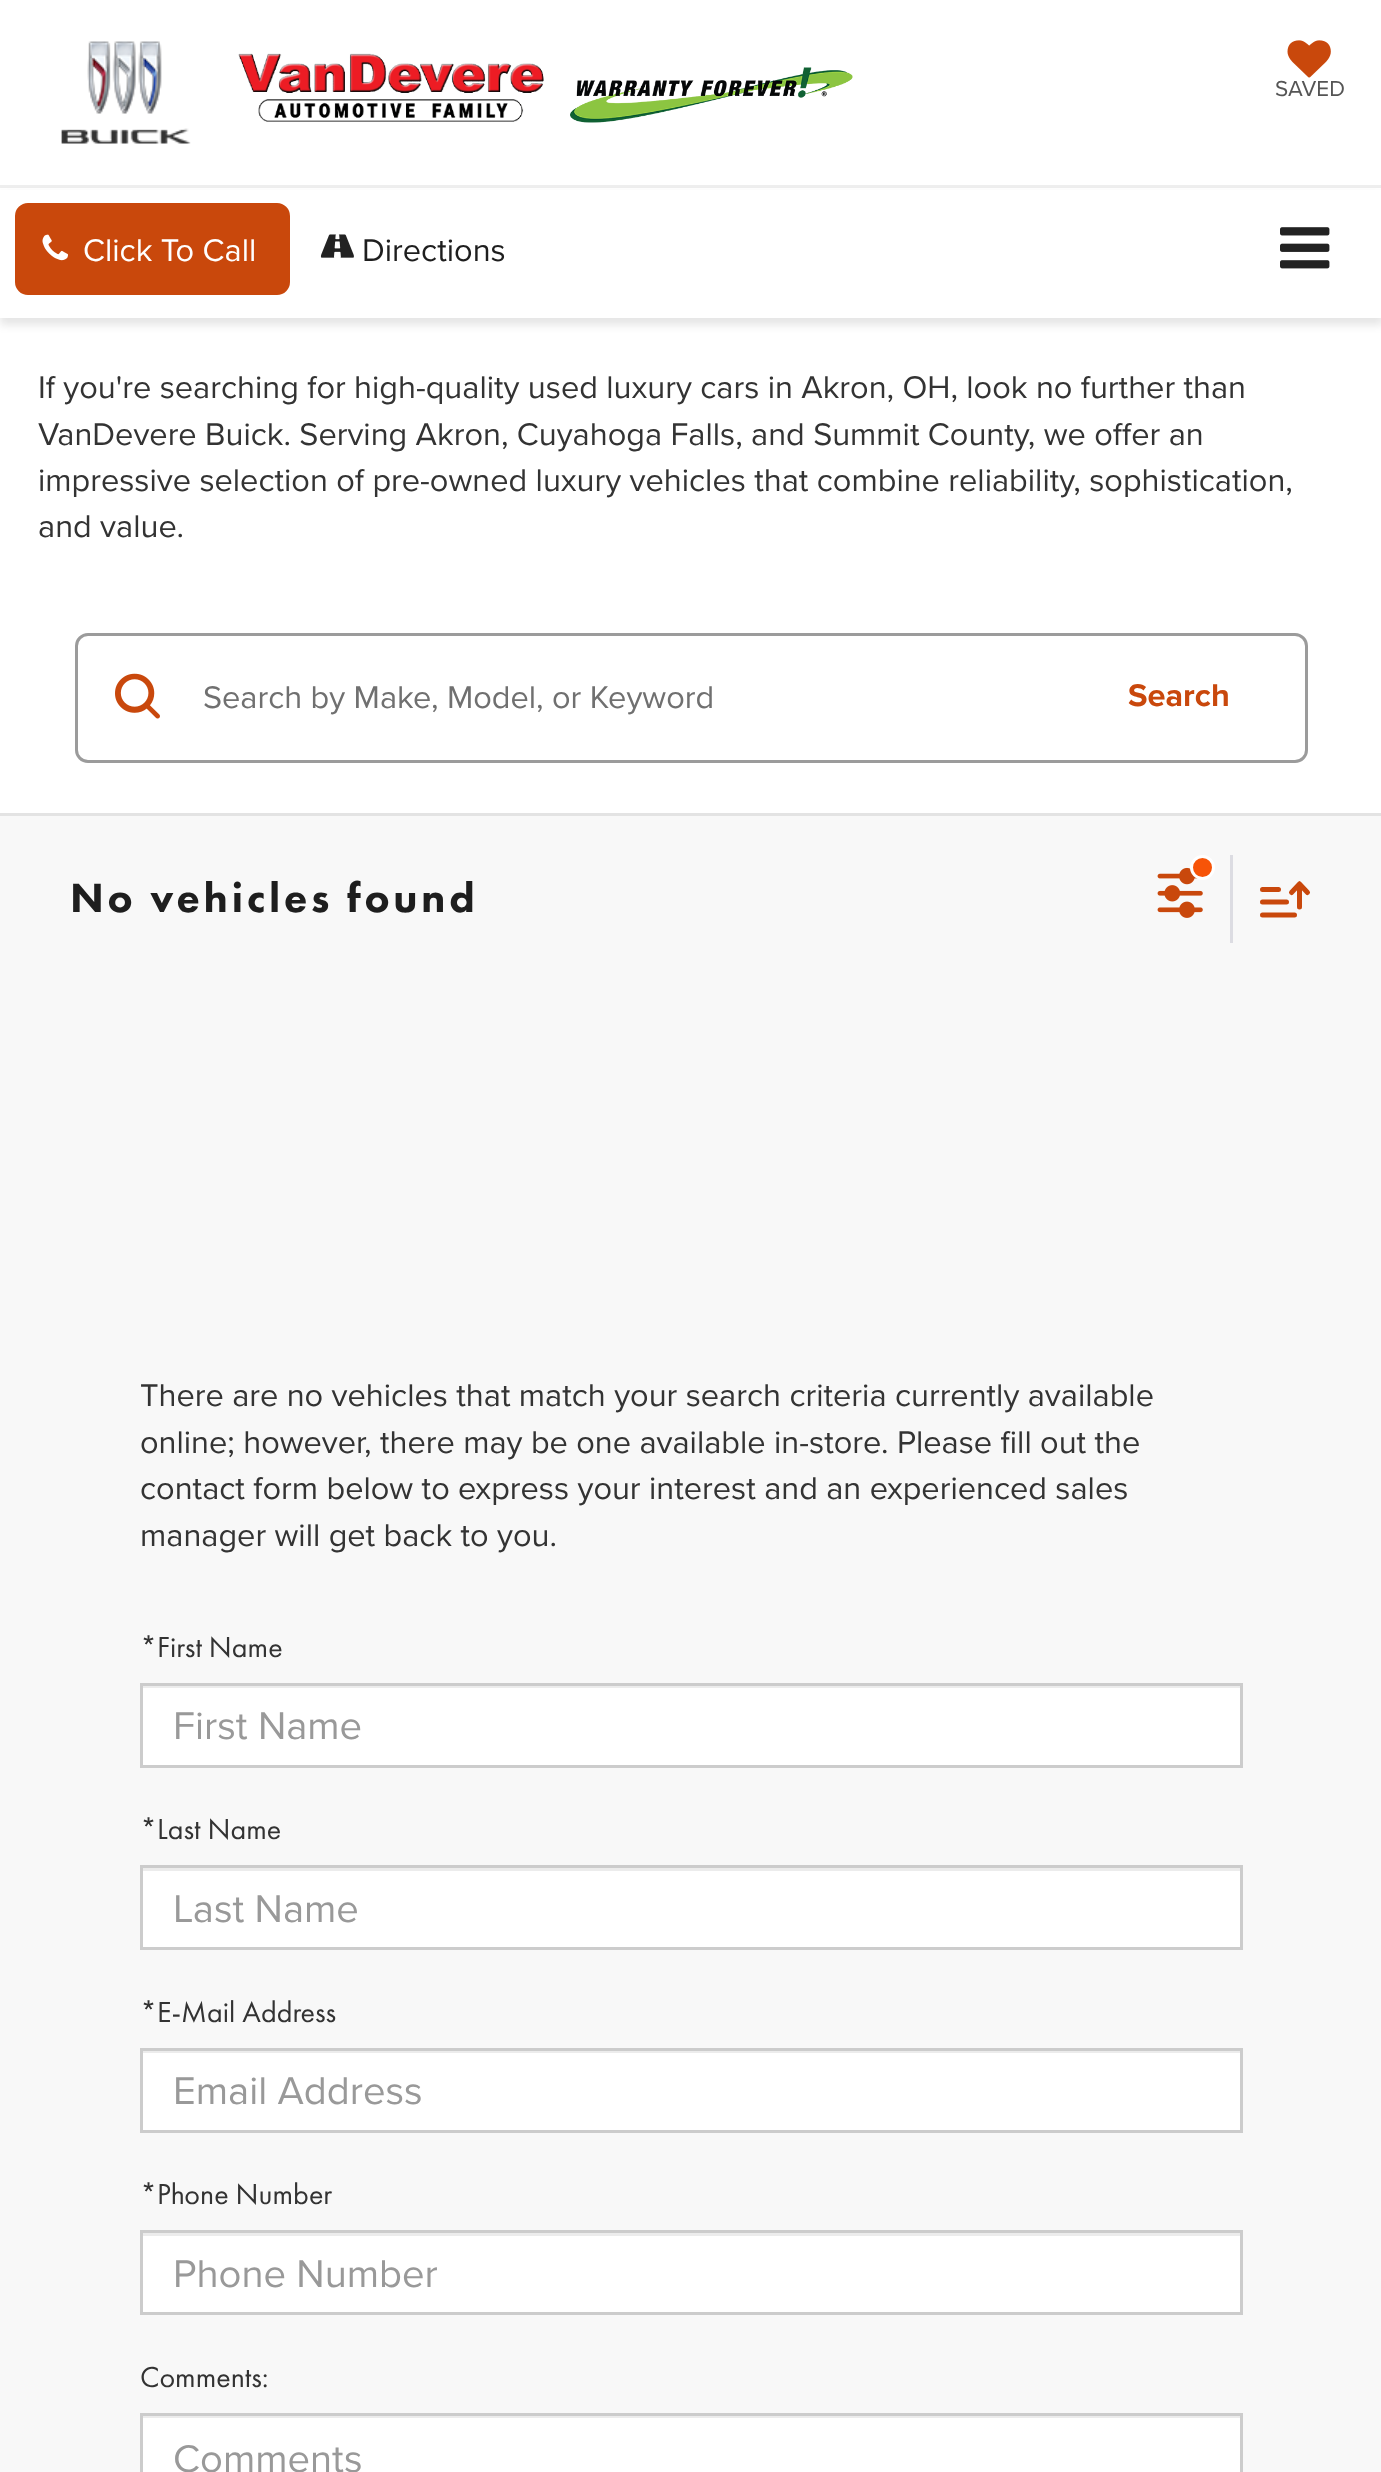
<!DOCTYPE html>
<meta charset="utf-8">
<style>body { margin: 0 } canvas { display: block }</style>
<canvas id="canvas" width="1381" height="2472"></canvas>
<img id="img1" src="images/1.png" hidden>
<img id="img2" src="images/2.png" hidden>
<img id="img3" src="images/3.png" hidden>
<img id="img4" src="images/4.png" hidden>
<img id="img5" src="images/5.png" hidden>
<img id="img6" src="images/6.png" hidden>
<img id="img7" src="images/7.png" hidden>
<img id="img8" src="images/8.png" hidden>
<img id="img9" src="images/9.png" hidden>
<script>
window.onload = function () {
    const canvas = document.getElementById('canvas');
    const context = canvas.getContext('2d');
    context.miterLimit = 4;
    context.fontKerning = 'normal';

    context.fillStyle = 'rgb(255, 255, 255)';
    context.fillRect(0, 0, 1381, 2472);
    context.drawImage(document.getElementById('img1'), 61, 41, 130, 103);
    context.drawImage(document.getElementById('img2'), 238, 53, 306, 69);
    context.drawImage(document.getElementById('img3'), 570, 67, 283, 56);
    context.drawImage(document.getElementById('img4'), 1287, 40, 44, 38);
    context.fillStyle = 'rgb(238, 238, 238)';
    context.fillRect(0, 185, 1381, 3);
    context.fillStyle = 'rgba(0, 0, 0, 0.1)';
    context.filter = 'blur(4px)';
    context.beginPath();
    context.rect(0, 195, 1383, 130);
    context.fill();
    context.filter = 'none';
    context.fillStyle = 'rgb(255, 255, 255)';
    context.fillRect(0, 190, 1381, 128);
    context.fillStyle = 'rgb(201, 72, 12)';
    context.beginPath();
    context.roundRect(16.5, 204.5, 272, 89, 11.5);
    context.fill();
    context.strokeStyle = 'rgb(201, 72, 12)';
    context.lineWidth = 3;
    context.stroke();
    context.drawImage(document.getElementById('img5'), 42, 234, 26, 27);
    context.drawImage(document.getElementById('img6'), 320, 234, 34, 24);
    context.drawImage(document.getElementById('img7'), 1280, 227, 50, 42);
    context.fillStyle = 'rgb(248, 248, 248)';
    context.fillRect(0, 816, 1381, 1656);
    context.fillStyle = 'rgb(227, 227, 227)';
    context.fillRect(0, 813, 1381, 3);
    context.beginPath();
    context.roundRect(76.5, 634.5, 1230, 127, 11.5);
    context.strokeStyle = 'rgb(155, 155, 155)';
    context.stroke();
    context.drawImage(document.getElementById('img8'), 115, 673, 45, 46);
    context.drawImage(document.getElementById('img9'), 1157, 867, 46, 51);
    context.fillStyle = 'rgb(247, 84, 8)';
    context.beginPath();
    context.arc(1202.5, 867.5, 11, 0, 2 * Math.PI);
    context.fill();
    context.strokeStyle = 'rgb(255, 255, 255)';
    context.stroke();
    context.fillStyle = 'rgb(220, 220, 226)';
    context.fillRect(1230, 855, 3, 88);
    context.beginPath();
    context.moveTo(1262.5, 915);
    context.lineTo(1294.5, 915);
    context.moveTo(1262.5, 902);
    context.lineTo(1286.5, 902);
    context.moveTo(1262.5, 889.5);
    context.lineTo(1278.5, 889.5);
    context.moveTo(1299.5, 907);
    context.lineTo(1299.5, 884);
    context.moveTo(1299.5, 884);
    context.lineTo(1307.5, 892.5);
    context.moveTo(1299.5, 884);
    context.lineTo(1291.5, 892.5);
    context.strokeStyle = 'rgb(201, 72, 12)';
    context.lineWidth = 5;
    context.lineCap = 'round';
    context.lineJoin = 'round';
    context.stroke();
    context.fillStyle = 'rgb(255, 255, 255)';
    context.fillRect(143, 1688, 1097, 77);
    context.fillStyle = 'rgb(236, 236, 236)';
    context.fillRect(143, 1686, 1097, 2);
    context.strokeStyle = 'rgb(204, 204, 204)';
    context.lineWidth = 3;
    context.lineJoin = 'miter';
    context.strokeRect(141.5, 1684.5, 1100, 82);
    context.fillStyle = 'rgb(255, 255, 255)';
    context.fillRect(143, 1871, 1097, 76);
    context.fillStyle = 'rgb(236, 236, 236)';
    context.fillRect(143, 1868, 1097, 3);
    context.strokeRect(141.5, 1866.5, 1100, 82);
    context.fillStyle = 'rgb(255, 255, 255)';
    context.fillRect(143, 2053, 1097, 77);
    context.fillStyle = 'rgb(236, 236, 236)';
    context.fillRect(143, 2051, 1097, 2);
    context.strokeRect(141.5, 2049.5, 1100, 82);
    context.fillStyle = 'rgb(255, 255, 255)';
    context.fillRect(143, 2236, 1097, 76);
    context.fillStyle = 'rgb(236, 236, 236)';
    context.fillRect(143, 2233, 1097, 3);
    context.strokeRect(141.5, 2231.5, 1100, 82);
    context.fillStyle = 'rgb(255, 255, 255)';
    context.fillRect(143, 2418, 1097, 54);
    context.fillStyle = 'rgb(236, 236, 236)';
    context.fillRect(143, 2416, 1097, 2);
    context.strokeRect(141.5, 2414.5, 1100, 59);
    context.font = '22.5px Proxima Nova';
    context.fillStyle = 'rgb(85, 85, 85)';
    context.fillText('SAVED', 1275, 96);
    context.font = '32.5px Proxima Nova';
    context.fillStyle = 'rgb(255, 255, 255)';
    context.fillText('Click To Call', 83, 261);
    context.fillStyle = 'rgb(30, 30, 30)';
    context.fillText('Directions', 362, 261);
    context.fillStyle = 'rgb(51, 51, 51)';
    context.fillText('If you\'re searching for high-quality used luxury cars in Akron, OH, look no further than', 38, 398);
    context.fillText('VanDevere Buick. Serving Akron, Cuyahoga Falls, and Summit County, we offer an', 38, 445);
    context.fillText('impressive selection of pre-owned luxury vehicles that combine reliability, sophistication,', 38, 491);
    context.fillText('and value.', 38, 537);
    context.fillStyle = 'rgb(112, 112, 112)';
    context.fillText('Search by Make, Model, or Keyword', 203, 708);
    context.font = 'bold 32.5px Proxima Nova';
    context.fillStyle = 'rgb(201, 72, 12)';
    context.fillText('Search', 1128, 706);
    context.letterSpacing = '3.75px';
    context.font = '900 42.5px Futura PT';
    context.fillStyle = 'rgb(30, 30, 30)';
    context.fillText('No vehicles found', 70, 912);
    context.letterSpacing = '0px';
    context.font = '32.5px Proxima Nova';
    context.fillStyle = 'rgb(51, 51, 51)';
    context.fillText('There are no vehicles that match your search criteria currently available', 140, 1406);
    context.fillText('online; however, there may be one available in-store. Please fill out the', 140, 1453);
    context.fillText('contact form below to express your interest and an experienced sales', 140, 1499);
    context.fillText('manager will get back to you.', 140, 1546);
    context.font = '30px Futura PT';
    context.fillText('*First Name', 140, 1657);
    context.font = '40px Proxima Nova';
    context.fillStyle = 'rgb(153, 153, 153)';
    context.fillText('First Name', 173, 1739);
    context.font = '30px Futura PT';
    context.fillStyle = 'rgb(51, 51, 51)';
    context.fillText('*Last Name', 140, 1839);
    context.font = '40px Proxima Nova';
    context.fillStyle = 'rgb(153, 153, 153)';
    context.fillText('Last Name', 173, 1922);
    context.font = '30px Futura PT';
    context.fillStyle = 'rgb(51, 51, 51)';
    context.fillText('*E-Mail Address', 140, 2022);
    context.font = '40px Proxima Nova';
    context.fillStyle = 'rgb(153, 153, 153)';
    context.fillText('Email Address', 173, 2104);
    context.font = '30px Futura PT';
    context.fillStyle = 'rgb(51, 51, 51)';
    context.fillText('*Phone Number', 140, 2204);
    context.font = '40px Proxima Nova';
    context.fillStyle = 'rgb(153, 153, 153)';
    context.fillText('Phone Number', 173, 2287);
    context.font = '30px Futura PT';
    context.fillStyle = 'rgb(51, 51, 51)';
    context.fillText('Comments:', 140, 2387);
    context.font = '40px Proxima Nova';
    context.fillStyle = 'rgb(153, 153, 153)';
    context.fillText('Comments', 173, 2472);
};
</script>
